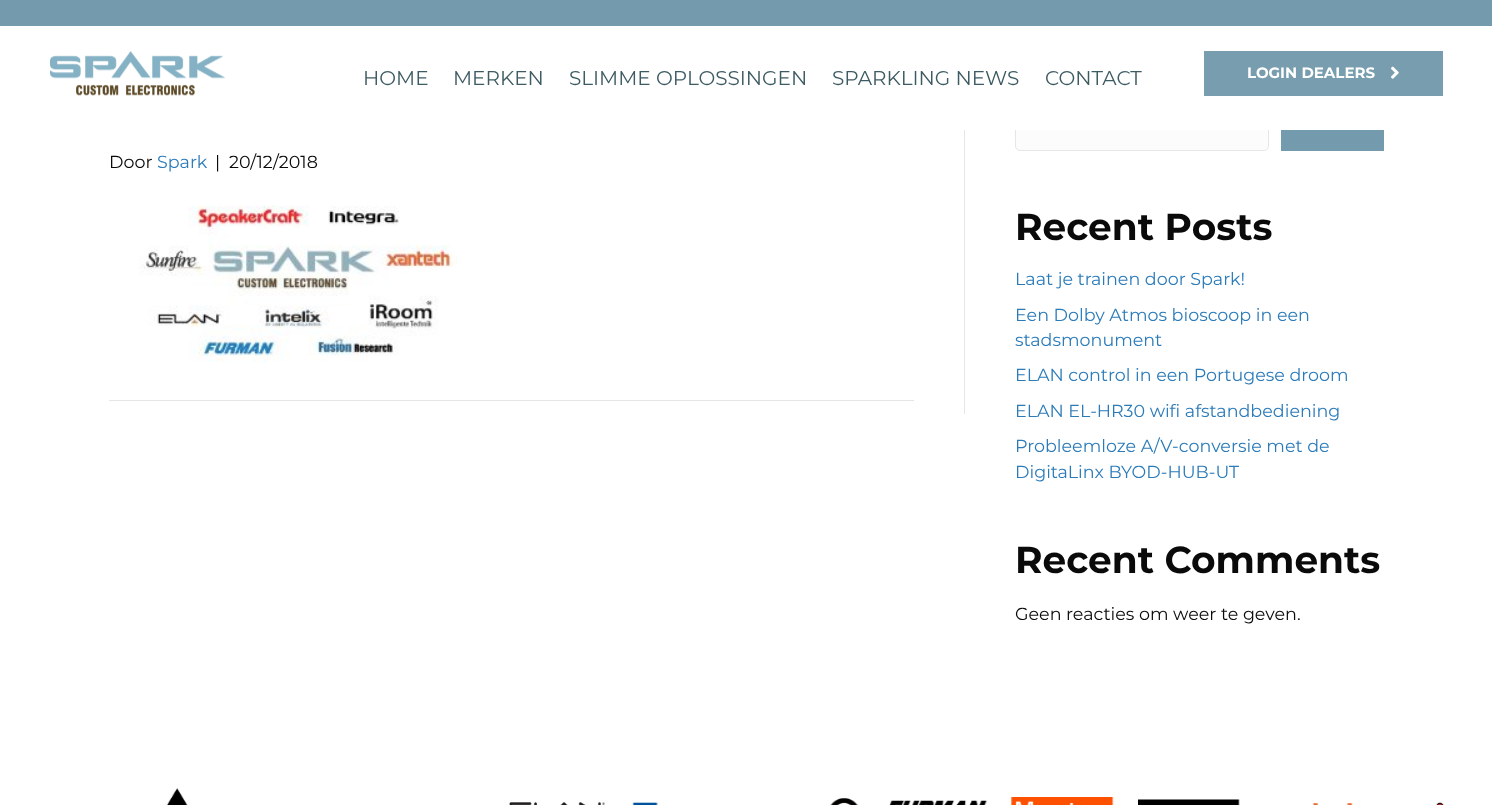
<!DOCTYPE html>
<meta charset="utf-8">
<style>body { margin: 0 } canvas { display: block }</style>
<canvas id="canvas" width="1492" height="805"></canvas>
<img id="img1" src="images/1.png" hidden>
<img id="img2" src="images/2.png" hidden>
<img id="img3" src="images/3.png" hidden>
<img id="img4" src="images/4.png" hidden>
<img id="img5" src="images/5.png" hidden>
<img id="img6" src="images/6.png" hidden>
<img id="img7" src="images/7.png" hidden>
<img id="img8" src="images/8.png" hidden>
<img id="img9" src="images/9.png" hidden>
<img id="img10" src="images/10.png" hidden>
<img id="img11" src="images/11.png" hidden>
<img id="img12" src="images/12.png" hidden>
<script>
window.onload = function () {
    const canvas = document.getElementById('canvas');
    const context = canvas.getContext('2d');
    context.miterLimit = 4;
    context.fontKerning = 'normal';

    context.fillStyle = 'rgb(255, 255, 255)';
    context.fillRect(0, 0, 1492, 805);
    context.fillStyle = 'rgb(116, 155, 173)';
    context.fillRect(0, 0, 1492, 26);
    context.fillStyle = 'rgb(252, 252, 252)';
    context.beginPath();
    context.roundRect(1015.5, 109.5, 253, 41, 4.5);
    context.fill();
    context.strokeStyle = 'rgb(230, 230, 230)';
    context.stroke();
    context.fillStyle = 'rgb(255, 255, 255)';
    context.fillRect(1015, 109, 254, 21);
    context.drawImage(document.getElementById('img1'), 50, 51, 175, 45);
    context.fillStyle = 'rgb(119, 157, 174)';
    context.fillRect(1204, 51, 239, 45);
    context.drawImage(document.getElementById('img2'), 1391, 66, 8, 13);
    context.fillStyle = 'rgb(230, 230, 230)';
    context.fillRect(964, 130, 1, 284);
    context.drawImage(document.getElementById('img3'), 139, 205, 318, 157);
    context.fillRect(109, 400, 805, 1);
    context.fillStyle = 'rgb(116, 155, 173)';
    context.fillRect(1281, 130, 103, 21);
    context.drawImage(document.getElementById('img4'), 166, 788, 22, 17);
    context.drawImage(document.getElementById('img5'), 509, 802, 96, 3);
    context.drawImage(document.getElementById('img6'), 632, 802, 26, 3);
    context.drawImage(document.getElementById('img7'), 830, 798, 28, 7);
    context.drawImage(document.getElementById('img8'), 889, 800, 99, 5);
    context.drawImage(document.getElementById('img9'), 1011, 797, 103, 8);
    context.drawImage(document.getElementById('img10'), 1138, 799, 102, 6);
    context.drawImage(document.getElementById('img11'), 1312, 802, 41, 3);
    context.drawImage(document.getElementById('img12'), 1436, 802, 8, 3);
    context.font = '20px Montserrat';
    context.fillStyle = 'rgb(61, 91, 99)';
    context.fillText('HOME', 363, 85);
    context.fillText('MERKEN', 453, 85);
    context.fillText('SLIMME OPLOSSINGEN', 569, 85);
    context.fillText('SPARKLING NEWS', 832, 85);
    context.fillText('CONTACT', 1045, 85);
    context.font = 'bold 15px Montserrat';
    context.fillStyle = 'rgb(255, 255, 255)';
    context.fillText('LOGIN DEALERS', 1247, 78);
    context.font = '17.5px Montserrat';
    context.fillStyle = 'rgb(10, 10, 10)';
    context.fillText('Door', 109, 168);
    context.fillStyle = 'rgb(43, 123, 185)';
    context.fillText('Spark', 157, 168);
    context.fillStyle = 'rgb(10, 10, 10)';
    context.fillText('|', 215, 168);
    context.fillText('20/12/2018', 229, 168);
    context.font = 'bold 37.5px Montserrat';
    context.fillText('Recent Posts', 1015, 240);
    context.font = '17.5px Montserrat';
    context.fillStyle = 'rgb(43, 123, 185)';
    context.fillText('Laat je trainen door Spark!', 1015, 285);
    context.fillText('Een Dolby Atmos bioscoop in een', 1015, 321);
    context.fillText('stadsmonument', 1015, 346);
    context.fillText('ELAN control in een Portugese droom', 1015, 381);
    context.fillText('ELAN EL-HR30 wifi afstandbediening', 1015, 417);
    context.fillText('Probleemloze A/V-conversie met de', 1015, 452);
    context.fillText('DigitaLinx BYOD-HUB-UT', 1015, 478);
    context.font = 'bold 37.5px Montserrat';
    context.fillStyle = 'rgb(10, 10, 10)';
    context.fillText('Recent Comments', 1015, 573);
    context.font = '17.5px Montserrat';
    context.fillText('Geen reacties om weer te geven.', 1015, 620);
};
</script>
